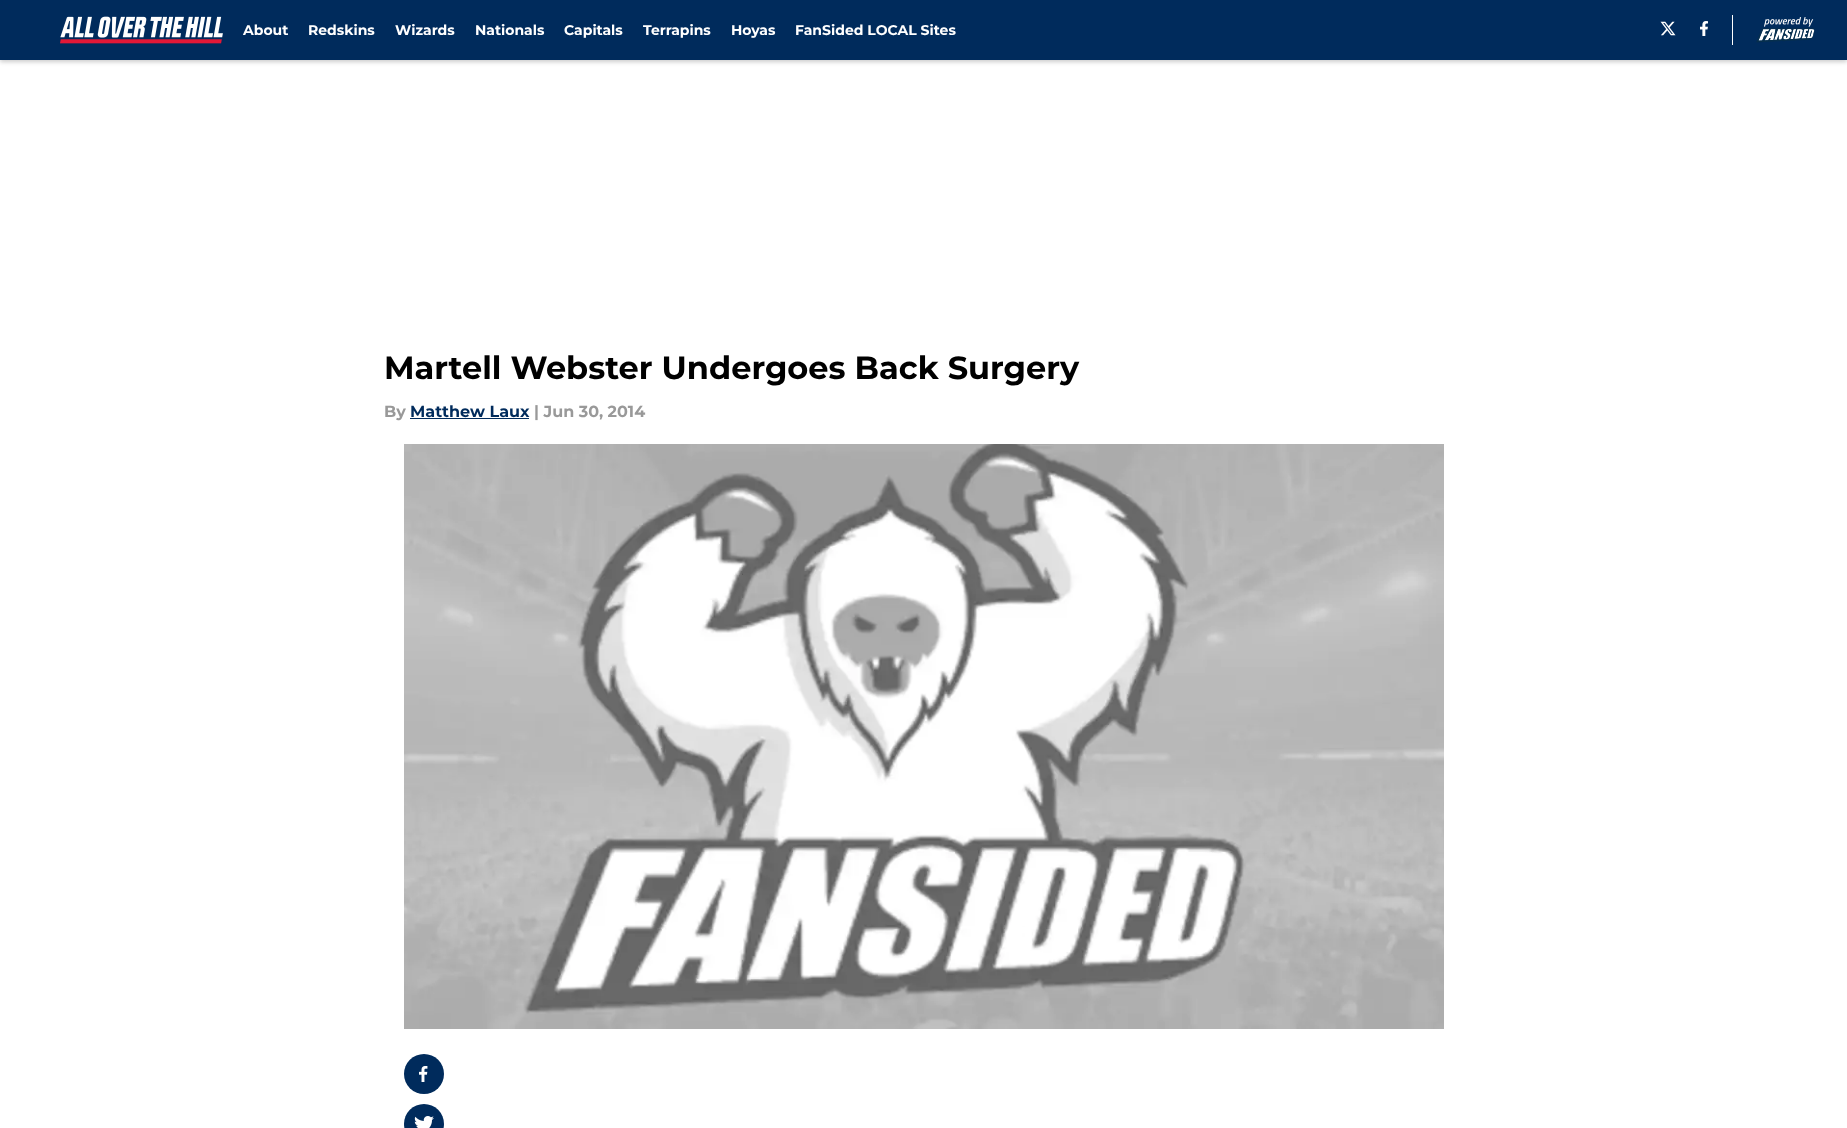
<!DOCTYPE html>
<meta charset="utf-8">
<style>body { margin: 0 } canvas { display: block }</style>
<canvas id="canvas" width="1847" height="1128"></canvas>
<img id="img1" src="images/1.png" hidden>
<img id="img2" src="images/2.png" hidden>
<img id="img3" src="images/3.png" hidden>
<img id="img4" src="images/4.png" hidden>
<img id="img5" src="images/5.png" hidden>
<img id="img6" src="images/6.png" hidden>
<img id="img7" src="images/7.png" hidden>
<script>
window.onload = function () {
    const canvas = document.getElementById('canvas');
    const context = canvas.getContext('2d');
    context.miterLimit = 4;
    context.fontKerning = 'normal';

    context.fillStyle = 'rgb(255, 255, 255)';
    context.fillRect(0, 0, 1847, 1128);
    context.fillStyle = 'rgba(0, 0, 0, 0.2)';
    context.filter = 'blur(2px)';
    context.beginPath();
    context.rect(0, 2, 1847, 60);
    context.fill();
    context.filter = 'none';
    context.fillStyle = 'rgb(0, 43, 92)';
    context.fillRect(0, 0, 1847, 60);
    context.drawImage(document.getElementById('img1'), 60, 16, 163, 28);
    context.drawImage(document.getElementById('img2'), 1660, 21, 16, 15);
    context.drawImage(document.getElementById('img3'), 1700, 21, 8, 15);
    context.fillStyle = 'rgb(255, 255, 255)';
    context.fillRect(1732, 15, 1, 30);
    context.drawImage(document.getElementById('img4'), 1756, 17, 59, 26);
    context.fillStyle = 'rgb(0, 43, 92)';
    context.fillRect(410, 418, 119, 1);
    context.drawImage(document.getElementById('img5'), 404, 444, 1040, 585);
    context.beginPath();
    context.arc(424, 1074, 20, 0, 2 * Math.PI);
    context.fill();
    context.drawImage(document.getElementById('img6'), 419, 1066, 9, 16);
    context.beginPath();
    context.arc(424, 1124, 20, 0, 2 * Math.PI);
    context.fill();
    context.drawImage(document.getElementById('img7'), 414, 1116, 20, 12);
    context.font = 'bold 14px Montserrat';
    context.fillStyle = 'rgb(255, 255, 255)';
    context.fillText('About', 243, 35);
    context.fillText('Redskins', 308, 35);
    context.fillText('Wizards', 395, 35);
    context.fillText('Nationals', 475, 35);
    context.fillText('Capitals', 564, 35);
    context.fillText('Terrapins', 643, 35);
    context.fillText('Hoyas', 731, 35);
    context.fillText('FanSided LOCAL Sites', 795, 35);
    context.font = 'bold 32px Montserrat';
    context.fillStyle = 'rgb(0, 0, 0)';
    context.fillText('Martell Webster Undergoes Back Surgery', 384, 379);
    context.font = 'bold 16px Montserrat';
    context.fillStyle = 'rgb(153, 153, 153)';
    context.fillText('By', 384, 417);
    context.fillStyle = 'rgb(0, 43, 92)';
    context.fillText('Matthew Laux', 410, 417);
    context.fillStyle = 'rgb(153, 153, 153)';
    context.fillText('| Jun 30, 2014', 534, 417);
};
</script>
